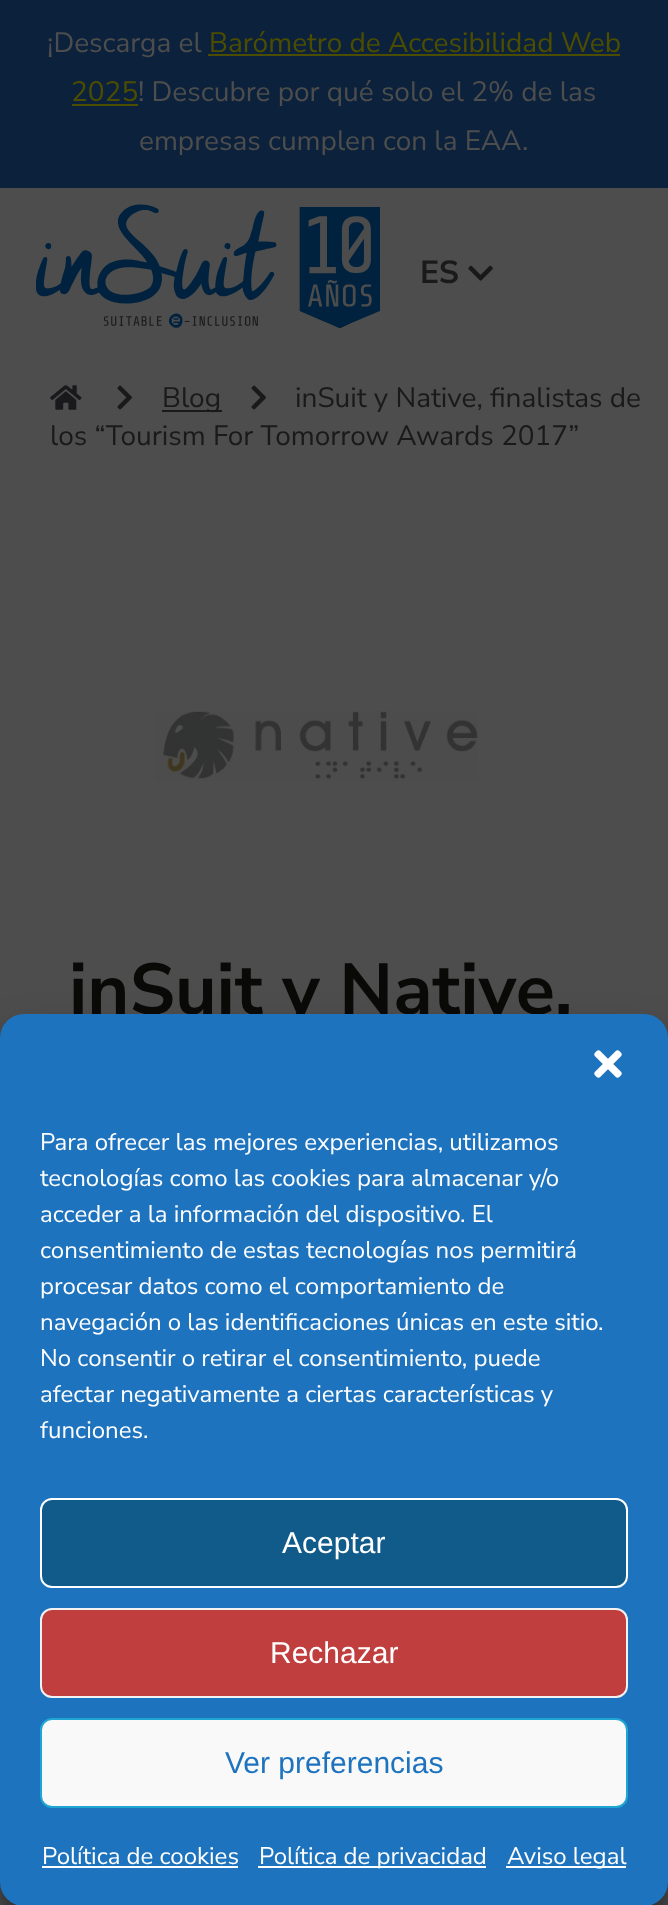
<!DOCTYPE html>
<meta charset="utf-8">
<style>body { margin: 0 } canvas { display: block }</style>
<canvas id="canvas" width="668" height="1905"></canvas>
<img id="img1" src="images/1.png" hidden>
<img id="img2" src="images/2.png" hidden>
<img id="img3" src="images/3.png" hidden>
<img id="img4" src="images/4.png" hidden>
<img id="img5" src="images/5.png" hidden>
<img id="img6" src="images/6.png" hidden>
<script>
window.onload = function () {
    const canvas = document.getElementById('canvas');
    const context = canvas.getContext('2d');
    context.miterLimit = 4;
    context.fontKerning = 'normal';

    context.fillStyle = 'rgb(77, 77, 77)';
    context.fillRect(0, 0, 668, 1905);
    context.fillStyle = 'rgb(12, 34, 60)';
    context.fillRect(0, 0, 668, 188);
    context.fillStyle = 'rgb(77, 77, 0)';
    context.fillRect(208, 54, 412, 2);
    context.fillRect(72, 104, 66, 2);
    context.drawImage(document.getElementById('img1'), 36, 204, 344, 124);
    context.drawImage(document.getElementById('img2'), 468, 265, 25, 16);
    context.drawImage(document.getElementById('img3'), 50, 385, 32, 25);
    context.drawImage(document.getElementById('img4'), 117, 385, 15, 25);
    context.fillStyle = 'rgb(26, 26, 27)';
    context.fillRect(162, 410, 60, 2);
    context.drawImage(document.getElementById('img4'), 251, 385, 15, 25);
    context.drawImage(document.getElementById('img5'), 155, 711, 323, 70);
    context.fillStyle = 'rgba(0, 0, 0, 0.23)';
    context.filter = 'blur(6px)';
    context.beginPath();
    context.roundRect(0, 1026, 668, 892, 24);
    context.fill();
    context.filter = 'none';
    context.fillStyle = 'rgba(0, 0, 0, 0.19)';
    context.filter = 'blur(20px)';
    context.beginPath();
    context.roundRect(0, 1034, 668, 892, 24);
    context.fill();
    context.filter = 'none';
    context.fillStyle = 'rgb(38, 38, 38)';
    context.filter = 'blur(5px)';
    context.beginPath();
    context.roundRect(528, 1758, 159, 120, 4);
    context.fill();
    context.filter = 'none';
    context.font = '28px Nunito Sans';
    context.fillStyle = 'rgb(77, 77, 77)';
    context.fillText('¡Descarga el', 47, 52);
    context.fillStyle = 'rgb(77, 77, 0)';
    context.fillText('Barómetro de Accesibilidad Web', 209, 52);
    context.fillText('2025', 71, 101);
    context.fillStyle = 'rgb(77, 77, 77)';
    context.fillText('! Descubre por qué solo el 2% de las', 138, 101);
    context.fillText('empresas cumplen con la EAA.', 139, 150);
    context.font = 'bold 32px Nunito Sans';
    context.fillStyle = 'rgb(26, 26, 27)';
    context.fillText('ES', 420, 283);
    context.font = '28px Nunito Sans';
    context.fillText('Blog', 162, 407);
    context.fillText('inSuit y Native, finalistas de', 295, 407);
    context.fillText('los “Tourism For Tomorrow Awards 2017”', 50, 445);
    context.font = 'bold 72px Nunito Sans';
    context.fillStyle = 'rgb(9, 9, 8)';
    context.fillText('inSuit y Native,', 69, 1014);
    context.fillStyle = 'rgb(30, 115, 190)';
    context.beginPath();
    context.roundRect(0, 1014, 668, 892, 24);
    context.fill();
    context.drawImage(document.getElementById('img6'), 594, 1050, 28, 28);
    context.font = '24px Nunito Sans';
    context.fillStyle = 'rgb(255, 255, 255)';
    context.fillText('Para ofrecer las mejores experiencias, utilizamos', 40, 1150);
    context.fillText('tecnologías como las cookies para almacenar y/o', 40, 1186);
    context.fillText('acceder a la información del dispositivo. El', 40, 1222);
    context.fillText('consentimiento de estas tecnologías nos permitirá', 40, 1258);
    context.fillText('procesar datos como el comportamiento de', 40, 1294);
    context.fillText('navegación o las identificaciones únicas en este sitio.', 40, 1330);
    context.fillText('No consentir o retirar el consentimiento, puede', 40, 1366);
    context.fillText('afectar negativamente a ciertas características y', 40, 1402);
    context.fillText('funciones.', 40, 1438);
    context.fillStyle = 'rgb(16, 91, 137)';
    context.beginPath();
    context.roundRect(41, 1499, 586, 88, 11);
    context.fill();
    context.strokeStyle = 'rgb(255, 255, 255)';
    context.lineWidth = 2;
    context.stroke();
    context.font = '30px Liberation Sans';
    context.fillStyle = 'rgb(255, 255, 255)';
    context.fillText('Aceptar', 282, 1553);
    context.fillStyle = 'rgb(193, 62, 62)';
    context.beginPath();
    context.roundRect(41, 1609, 586, 88, 11);
    context.fill();
    context.strokeStyle = 'rgb(242, 242, 242)';
    context.stroke();
    context.fillStyle = 'rgb(255, 255, 255)';
    context.fillText('Rechazar', 270, 1663);
    context.fillStyle = 'rgb(249, 249, 249)';
    context.beginPath();
    context.roundRect(41, 1719, 586, 88, 11);
    context.fill();
    context.strokeStyle = 'rgb(31, 166, 211)';
    context.stroke();
    context.fillStyle = 'rgb(30, 115, 190)';
    context.fillText('Ver preferencias', 225, 1773);
    context.font = '24px Nunito Sans';
    context.fillStyle = 'rgb(255, 255, 255)';
    context.fillText('Política de cookies', 42, 1864);
    context.fillRect(42, 1866, 196, 2);
    context.fillRect(258, 1866, 228, 2);
    context.fillText('Política de privacidad', 259, 1864);
    context.fillRect(506, 1866, 120, 2);
    context.fillText('Aviso legal', 507, 1864);
};
</script>
